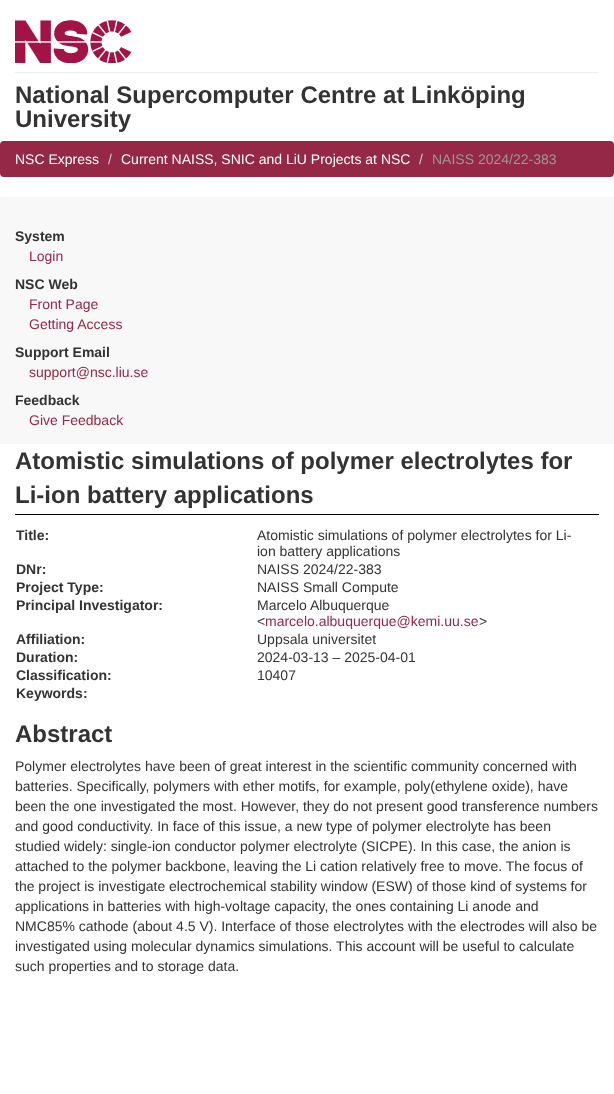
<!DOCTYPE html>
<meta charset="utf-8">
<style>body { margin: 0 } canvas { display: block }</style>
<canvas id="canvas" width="614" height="1094"></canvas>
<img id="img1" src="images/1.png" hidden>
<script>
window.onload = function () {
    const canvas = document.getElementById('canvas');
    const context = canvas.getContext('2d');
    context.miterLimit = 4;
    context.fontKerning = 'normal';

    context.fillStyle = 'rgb(255, 255, 255)';
    context.fillRect(0, 0, 614, 1094);
    context.fillStyle = 'rgb(238, 238, 238)';
    context.fillRect(15, 72, 584, 1);
    context.drawImage(document.getElementById('img1'), 15, 20, 117, 43);
    context.fillStyle = 'rgb(149, 39, 71)';
    context.beginPath();
    context.roundRect(0, 141, 614, 36, 4);
    context.fill();
    context.fillStyle = 'rgb(248, 248, 248)';
    context.fillRect(0, 197, 614, 247);
    context.fillStyle = 'rgb(0, 0, 0)';
    context.fillRect(15, 514, 584, 1);
    context.font = 'bold 24px Liberation Sans';
    context.fillStyle = 'rgb(51, 51, 51)';
    context.fillText('National Supercomputer Centre at Linköping', 15, 103);
    context.fillText('University', 15, 127);
    context.font = '14px Liberation Sans';
    context.fillStyle = 'rgb(255, 255, 255)';
    context.fillText('NSC Express', 15, 164);
    context.fillStyle = 'rgb(204, 204, 204)';
    context.fillText('/', 108, 164);
    context.fillStyle = 'rgb(255, 255, 255)';
    context.fillText('Current NAISS, SNIC and LiU Projects at NSC', 121, 164);
    context.fillStyle = 'rgb(204, 204, 204)';
    context.fillText('/', 419, 164);
    context.fillStyle = 'rgb(153, 153, 153)';
    context.fillText('NAISS 2024/22-383', 432, 164);
    context.font = 'bold 14px Liberation Sans';
    context.fillStyle = 'rgb(51, 51, 51)';
    context.fillText('System', 15, 241);
    context.font = '14px Liberation Sans';
    context.fillStyle = 'rgb(149, 39, 71)';
    context.fillText('Login', 29, 261);
    context.font = 'bold 14px Liberation Sans';
    context.fillStyle = 'rgb(51, 51, 51)';
    context.fillText('NSC Web', 15, 289);
    context.font = '14px Liberation Sans';
    context.fillStyle = 'rgb(149, 39, 71)';
    context.fillText('Front Page', 29, 309);
    context.fillText('Getting Access', 29, 329);
    context.font = 'bold 14px Liberation Sans';
    context.fillStyle = 'rgb(51, 51, 51)';
    context.fillText('Support Email', 15, 357);
    context.font = '14px Liberation Sans';
    context.fillStyle = 'rgb(149, 39, 71)';
    context.fillText('support@nsc.liu.se', 29, 377);
    context.font = 'bold 14px Liberation Sans';
    context.fillStyle = 'rgb(51, 51, 51)';
    context.fillText('Feedback', 15, 405);
    context.font = '14px Liberation Sans';
    context.fillStyle = 'rgb(149, 39, 71)';
    context.fillText('Give Feedback', 29, 425);
    context.font = 'bold 24px Liberation Sans';
    context.fillStyle = 'rgb(51, 51, 51)';
    context.fillText('Atomistic simulations of polymer electrolytes for', 15, 469);
    context.fillText('Li-ion battery applications', 15, 503);
    context.font = 'bold 14px Liberation Sans';
    context.fillText('Title:', 16, 540);
    context.font = '14px Liberation Sans';
    context.fillText('Atomistic simulations of polymer electrolytes for Li-', 257, 540);
    context.fillText('ion battery applications', 257, 556);
    context.font = 'bold 14px Liberation Sans';
    context.fillText('DNr:', 16, 574);
    context.font = '14px Liberation Sans';
    context.fillText('NAISS 2024/22-383', 257, 574);
    context.font = 'bold 14px Liberation Sans';
    context.fillText('Project Type:', 16, 592);
    context.font = '14px Liberation Sans';
    context.fillText('NAISS Small Compute', 257, 592);
    context.font = 'bold 14px Liberation Sans';
    context.fillText('Principal Investigator:', 16, 610);
    context.font = '14px Liberation Sans';
    context.fillText('Marcelo Albuquerque', 257, 610);
    context.fillText('<', 257, 626);
    context.fillStyle = 'rgb(149, 39, 71)';
    context.fillText('marcelo.albuquerque@kemi.uu.se', 265, 626);
    context.fillStyle = 'rgb(51, 51, 51)';
    context.fillText('>', 479, 626);
    context.font = 'bold 14px Liberation Sans';
    context.fillText('Affiliation:', 16, 644);
    context.font = '14px Liberation Sans';
    context.fillText('Uppsala universitet', 257, 644);
    context.font = 'bold 14px Liberation Sans';
    context.fillText('Duration:', 16, 662);
    context.font = '14px Liberation Sans';
    context.fillText('2024-03-13 – 2025-04-01', 257, 662);
    context.font = 'bold 14px Liberation Sans';
    context.fillText('Classification:', 16, 680);
    context.font = '14px Liberation Sans';
    context.fillText('10407', 257, 680);
    context.font = 'bold 14px Liberation Sans';
    context.fillText('Keywords:', 16, 698);
    context.font = 'bold 24px Liberation Sans';
    context.fillText('Abstract', 15, 742);
    context.font = '14px Liberation Sans';
    context.fillText('Polymer electrolytes have been of great interest in the scientific community concerned with', 15, 771);
    context.fillText('batteries. Specifically, polymers with ether motifs, for example, poly(ethylene oxide), have', 15, 791);
    context.fillText('been the one investigated the most. However, they do not present good transference numbers', 15, 811);
    context.fillText('and good conductivity. In face of this issue, a new type of polymer electrolyte has been', 15, 831);
    context.fillText('studied widely: single-ion conductor polymer electrolyte (SICPE). In this case, the anion is', 15, 851);
    context.fillText('attached to the polymer backbone, leaving the Li cation relatively free to move. The focus of', 15, 871);
    context.fillText('the project is investigate electrochemical stability window (ESW) of those kind of systems for', 15, 891);
    context.fillText('applications in batteries with high-voltage capacity, the ones containing Li anode and', 15, 911);
    context.fillText('NMC85% cathode (about 4.5 V). Interface of those electrolytes with the electrodes will also be', 15, 931);
    context.fillText('investigated using molecular dynamics simulations. This account will be useful to calculate', 15, 951);
    context.fillText('such properties and to storage data.', 15, 971);
};
</script>
